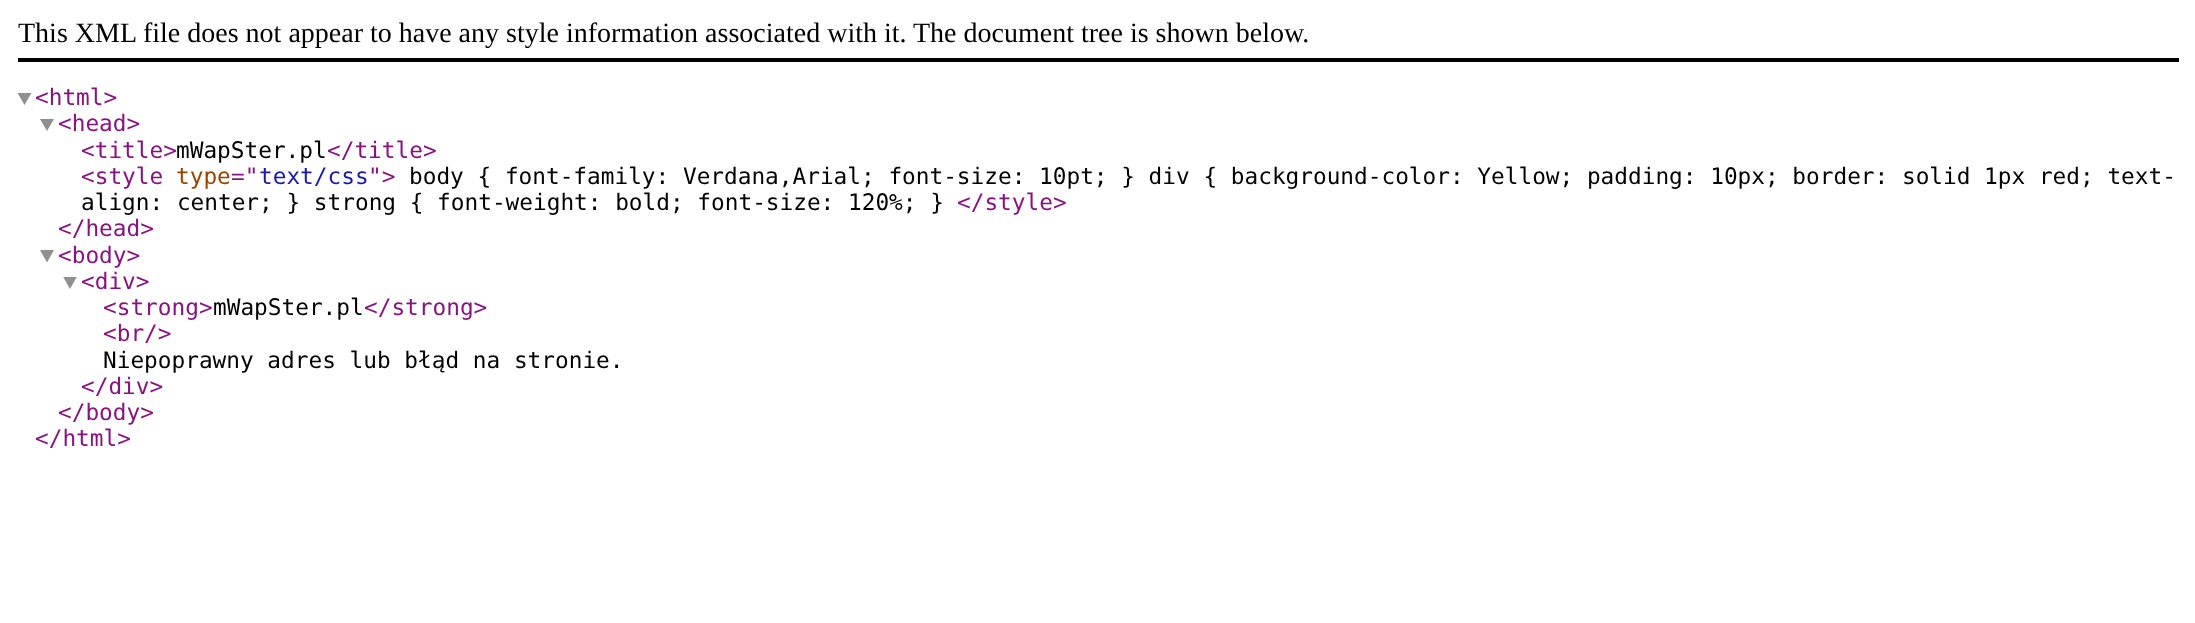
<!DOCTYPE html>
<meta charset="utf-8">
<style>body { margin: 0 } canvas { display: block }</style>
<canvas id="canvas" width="2195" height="623"></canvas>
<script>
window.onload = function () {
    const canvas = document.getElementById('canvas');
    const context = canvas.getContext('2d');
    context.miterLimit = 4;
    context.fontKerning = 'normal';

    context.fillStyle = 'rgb(255, 255, 255)';
    context.fillRect(0, 0, 2195, 623);
    context.fillStyle = 'rgb(0, 0, 0)';
    context.fillRect(18, 58, 2161, 4);
    context.fillStyle = 'rgb(144, 144, 144)';
    context.beginPath();
    context.moveTo(17.5, 93);
    context.lineTo(31.5, 93);
    context.lineTo(24.5, 105);
    context.closePath();
    context.fill();
    context.beginPath();
    context.moveTo(40, 119);
    context.lineTo(54, 119);
    context.lineTo(47, 131);
    context.closePath();
    context.fill();
    context.beginPath();
    context.moveTo(40, 250);
    context.lineTo(54, 250);
    context.lineTo(47, 262.5);
    context.closePath();
    context.fill();
    context.save();
    context.beginPath();
    context.rect(63, 277, 18, 17);
    context.clip();
    context.beginPath();
    context.moveTo(63, 276.5);
    context.lineTo(77, 276.5);
    context.lineTo(70, 289);
    context.closePath();
    context.fill();
    context.restore();
    context.font = '28px Liberation Serif';
    context.fillStyle = 'rgb(0, 0, 0)';
    context.fillText('This XML file does not appear to have any style information associated with it. The document tree is shown below.', 18, 42);
    context.font = '22.75px DejaVu Sans Mono';
    context.fillStyle = 'rgb(136, 18, 128)';
    context.fillText('<html>', 35, 105);
    context.fillText('<head>', 58, 131);
    context.fillText('<title>', 81, 158);
    context.fillStyle = 'rgb(0, 0, 0)';
    context.fillText('mWapSter.pl', 176, 158);
    context.fillStyle = 'rgb(136, 18, 128)';
    context.fillText('<\/title>', 327, 158);
    context.fillText('<style', 81, 184);
    context.fillStyle = 'rgb(153, 69, 0)';
    context.fillText('type', 176, 184);
    context.fillStyle = 'rgb(136, 18, 128)';
    context.fillText('="', 231, 184);
    context.fillStyle = 'rgb(26, 26, 166)';
    context.fillText('text/css', 259, 184);
    context.fillStyle = 'rgb(136, 18, 128)';
    context.fillText('">', 368, 184);
    context.fillStyle = 'rgb(0, 0, 0)';
    context.fillText('body { font-family: Verdana,Arial; font-size: 10pt; } div { background-color: Yellow; padding: 10px; border: solid 1px red; text-', 409, 184);
    context.fillText('align: center; } strong { font-weight: bold; font-size: 120%; }', 81, 210);
    context.fillStyle = 'rgb(136, 18, 128)';
    context.fillText('<\/style>', 957, 210);
    context.fillText('<\/head>', 58, 236);
    context.fillText('<body>', 58, 263);
    context.fillText('<div>', 81, 289);
    context.fillText('<strong>', 103, 315);
    context.fillStyle = 'rgb(0, 0, 0)';
    context.fillText('mWapSter.pl', 213, 315);
    context.fillStyle = 'rgb(136, 18, 128)';
    context.fillText('<\/strong>', 364, 315);
    context.fillText('<br/>', 103, 341);
    context.fillStyle = 'rgb(0, 0, 0)';
    context.fillText('Niepoprawny adres lub błąd na stronie.', 103, 368);
    context.fillStyle = 'rgb(136, 18, 128)';
    context.fillText('<\/div>', 81, 394);
    context.fillText('<\/body>', 58, 420);
    context.fillText('<\/html>', 35, 446);
};
</script>
